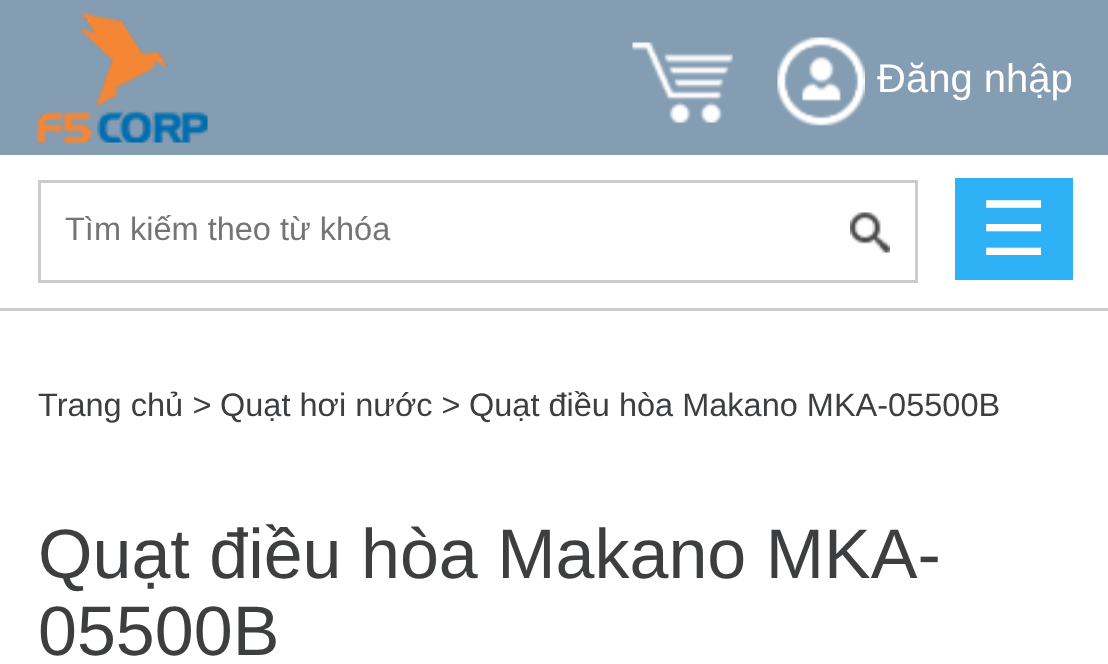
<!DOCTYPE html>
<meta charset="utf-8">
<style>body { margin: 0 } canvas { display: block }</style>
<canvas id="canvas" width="1108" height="664"></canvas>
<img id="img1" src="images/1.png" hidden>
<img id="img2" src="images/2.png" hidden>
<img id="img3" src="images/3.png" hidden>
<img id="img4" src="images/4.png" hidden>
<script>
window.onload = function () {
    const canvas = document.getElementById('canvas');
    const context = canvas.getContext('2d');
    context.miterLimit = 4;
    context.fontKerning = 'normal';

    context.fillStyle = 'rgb(255, 255, 255)';
    context.fillRect(0, 0, 1108, 664);
    context.fillStyle = 'rgb(204, 204, 204)';
    context.fillRect(0, 308, 1108, 3);
    context.fillStyle = 'rgb(132, 157, 179)';
    context.fillRect(0, 0, 1108, 155);
    context.drawImage(document.getElementById('img1'), 37, 12, 171, 131);
    context.drawImage(document.getElementById('img2'), 632, 42, 101, 81);
    context.drawImage(document.getElementById('img3'), 777, 37, 88, 89);
    context.strokeStyle = 'rgb(204, 204, 204)';
    context.lineWidth = 3;
    context.strokeRect(39.5, 181.5, 877, 100);
    context.drawImage(document.getElementById('img4'), 850, 212, 40, 41);
    context.fillStyle = 'rgb(46, 178, 245)';
    context.fillRect(955, 178, 118, 102);
    context.font = '40px Liberation Sans';
    context.fillStyle = 'rgb(255, 255, 255)';
    context.fillText('Đăng nhập', 877, 92);
    context.font = '32.5px Liberation Sans';
    context.fillStyle = 'rgb(117, 117, 117)';
    context.fillText('Tìm kiếm theo từ khóa', 65, 240);
    context.font = '75px DejaVu Sans';
    context.fillStyle = 'rgb(255, 255, 255)';
    context.fillText('☰', 980, 255);
    context.font = '32.5px Liberation Sans';
    context.fillStyle = 'rgb(61, 62, 64)';
    context.fillText('Trang chủ', 38, 416);
    context.font = 'italic 32.5px Liberation Sans';
    context.fillText('>', 192, 416);
    context.font = '32.5px Liberation Sans';
    context.fillText('Quạt hơi nước', 220, 416);
    context.font = 'italic 32.5px Liberation Sans';
    context.fillText('>', 441, 416);
    context.font = '32.5px Liberation Sans';
    context.fillText('Quạt điều hòa Makano MKA-05500B', 469, 416);
    context.font = '70px Liberation Sans';
    context.fillText('Quạt điều hòa Makano MKA-', 38, 578);
    context.fillText('05500B', 38, 655);
};
</script>
